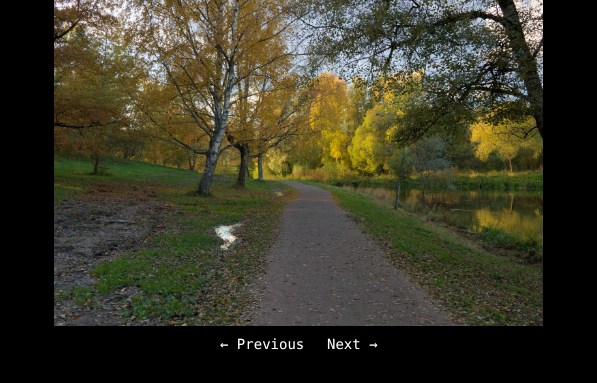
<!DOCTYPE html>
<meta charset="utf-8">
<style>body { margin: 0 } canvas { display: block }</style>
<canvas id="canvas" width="597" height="383"></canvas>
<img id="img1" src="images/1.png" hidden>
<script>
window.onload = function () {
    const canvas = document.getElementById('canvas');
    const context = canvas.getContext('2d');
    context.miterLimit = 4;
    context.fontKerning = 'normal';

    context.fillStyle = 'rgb(0, 0, 0)';
    context.fillRect(0, 0, 597, 383);
    context.drawImage(document.getElementById('img1'), 54, 0, 489, 326);
    context.font = '14px DejaVu Sans Mono';
    context.fillStyle = 'rgb(255, 255, 255)';
    context.fillText('← Previous', 220, 349);
    context.fillText('Next →', 327, 349);
};
</script>
